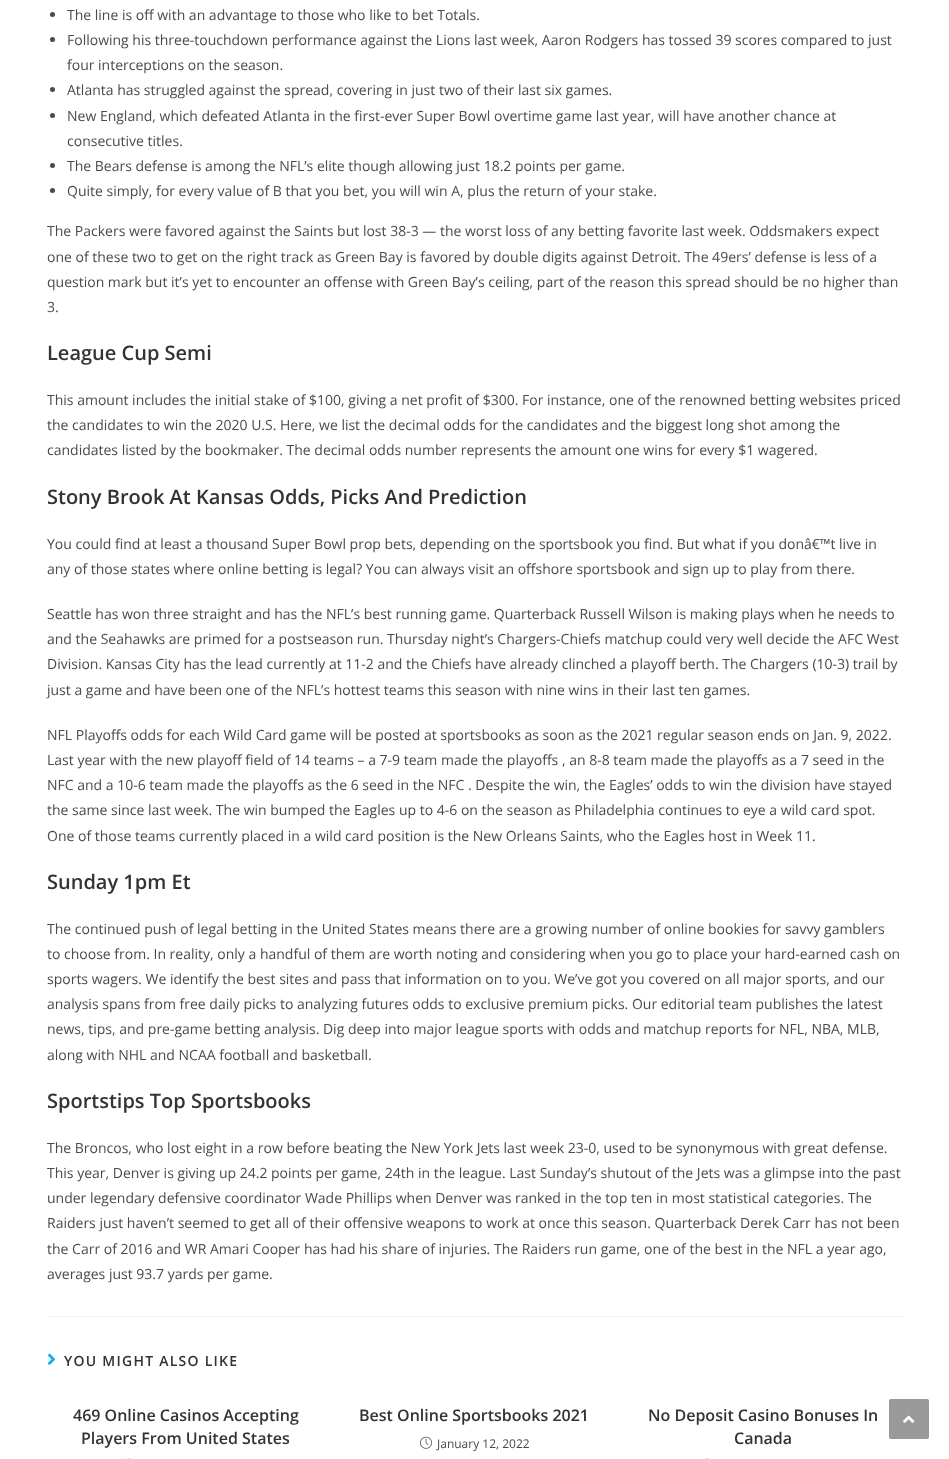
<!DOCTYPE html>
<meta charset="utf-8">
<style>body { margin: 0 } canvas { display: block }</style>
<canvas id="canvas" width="949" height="1459"></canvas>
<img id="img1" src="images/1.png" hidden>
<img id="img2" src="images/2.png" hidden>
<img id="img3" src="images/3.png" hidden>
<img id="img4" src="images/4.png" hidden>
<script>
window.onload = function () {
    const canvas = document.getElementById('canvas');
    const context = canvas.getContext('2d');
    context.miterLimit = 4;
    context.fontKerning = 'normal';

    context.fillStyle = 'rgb(255, 255, 255)';
    context.fillRect(0, 0, 949, 1459);
    context.fillStyle = 'rgb(74, 74, 74)';
    context.beginPath();
    context.arc(52.5, 14.5, 2.5, 0, 2 * Math.PI);
    context.fill();
    context.beginPath();
    context.arc(52.5, 39.5, 2.5, 0, 2 * Math.PI);
    context.fill();
    context.beginPath();
    context.arc(52.5, 89.5, 2.5, 0, 2 * Math.PI);
    context.fill();
    context.beginPath();
    context.arc(52.5, 115.5, 2.5, 0, 2 * Math.PI);
    context.fill();
    context.beginPath();
    context.arc(52.5, 165.5, 2.5, 0, 2 * Math.PI);
    context.fill();
    context.beginPath();
    context.arc(52.5, 190.5, 2.5, 0, 2 * Math.PI);
    context.fill();
    context.fillStyle = 'rgb(241, 241, 241)';
    context.fillRect(47, 1316, 855, 1);
    context.drawImage(document.getElementById('img1'), 47, 1353, 9, 12);
    context.drawImage(document.getElementById('img2'), 127, 1458, 4, 1);
    context.drawImage(document.getElementById('img3'), 420, 1436, 12, 13);
    context.drawImage(document.getElementById('img2'), 705, 1458, 4, 1);
    context.fillStyle = 'rgb(153, 153, 153)';
    context.beginPath();
    context.roundRect(889, 1399, 40, 40, 2);
    context.fill();
    context.drawImage(document.getElementById('img4'), 903, 1415, 12, 8);
    context.font = '14px Open Sans';
    context.fillStyle = 'rgb(74, 74, 74)';
    context.fillText('The line is off with an advantage to those who like to bet Totals.', 67, 20);
    context.fillText('Following his three-touchdown performance against the Lions last week, Aaron Rodgers has tossed 39 scores compared to just', 67, 45);
    context.fillText('four interceptions on the season.', 67, 70);
    context.fillText('Atlanta has struggled against the spread, covering in just two of their last six games.', 67, 95);
    context.fillText('New England, which defeated Atlanta in the first-ever Super Bowl overtime game last year, will have another chance at', 67, 121);
    context.fillText('consecutive titles.', 67, 146);
    context.fillText('The Bears defense is among the NFL’s elite though allowing just 18.2 points per game.', 67, 171);
    context.fillText('Quite simply, for every value of B that you bet, you will win A, plus the return of your stake.', 67, 196);
    context.fillText('The Packers were favored against the Saints but lost 38-3 — the worst loss of any betting favorite last week. Oddsmakers expect', 47, 236);
    context.fillText('one of these two to get on the right track as Green Bay is favored by double digits against Detroit. The 49ers’ defense is less of a', 47, 262);
    context.fillText('question mark but it’s yet to encounter an offense with Green Bay’s ceiling, part of the reason this spread should be no higher than', 47, 287);
    context.fillText('3.', 47, 312);
    context.font = '600 20px Open Sans';
    context.fillStyle = 'rgb(51, 51, 51)';
    context.fillText('League Cup Semi', 47, 360);
    context.font = '14px Open Sans';
    context.fillStyle = 'rgb(74, 74, 74)';
    context.fillText('This amount includes the initial stake of $100, giving a net profit of $300. For instance, one of the renowned betting websites priced', 47, 405);
    context.fillText('the candidates to win the 2020 U.S. Here, we list the decimal odds for the candidates and the biggest long shot among the', 47, 430);
    context.fillText('candidates listed by the bookmaker. The decimal odds number represents the amount one wins for every $1 wagered.', 47, 455);
    context.font = '600 20px Open Sans';
    context.fillStyle = 'rgb(51, 51, 51)';
    context.fillText('Stony Brook At Kansas Odds, Picks And Prediction', 47, 504);
    context.font = '14px Open Sans';
    context.fillStyle = 'rgb(74, 74, 74)';
    context.fillText('You could find at least a thousand Super Bowl prop bets, depending on the sportsbook you find. But what if you donâ€™t live in', 47, 549);
    context.fillText('any of those states where online betting is legal? You can always visit an offshore sportsbook and sign up to play from there.', 47, 574);
    context.fillText('Seattle has won three straight and has the NFL’s best running game. Quarterback Russell Wilson is making plays when he needs to', 47, 619);
    context.fillText('and the Seahawks are primed for a postseason run. Thursday night’s Chargers-Chiefs matchup could very well decide the AFC West', 47, 644);
    context.fillText('Division. Kansas City has the lead currently at 11-2 and the Chiefs have already clinched a playoff berth. The Chargers (10-3) trail by', 47, 669);
    context.fillText('just a game and have been one of the NFL’s hottest teams this season with nine wins in their last ten games.', 47, 695);
    context.fillText('NFL Playoffs odds for each Wild Card game will be posted at sportsbooks as soon as the 2021 regular season ends on Jan. 9, 2022.', 47, 740);
    context.fillText('Last year with the new playoff field of 14 teams – a 7-9 team made the playoffs , an 8-8 team made the playoffs as a 7 seed in the', 47, 765);
    context.fillText('NFC and a 10-6 team made the playoffs as the 6 seed in the NFC . Despite the win, the Eagles’ odds to win the division have stayed', 47, 790);
    context.fillText('the same since last week. The win bumped the Eagles up to 4-6 on the season as Philadelphia continues to eye a wild card spot.', 47, 815);
    context.fillText('One of those teams currently placed in a wild card position is the New Orleans Saints, who the Eagles host in Week 11.', 47, 841);
    context.font = '600 20px Open Sans';
    context.fillStyle = 'rgb(51, 51, 51)';
    context.fillText('Sunday 1pm Et', 47, 889);
    context.font = '14px Open Sans';
    context.fillStyle = 'rgb(74, 74, 74)';
    context.fillText('The continued push of legal betting in the United States means there are a growing number of online bookies for savvy gamblers', 47, 934);
    context.fillText('to choose from. In reality, only a handful of them are worth noting and considering when you go to place your hard-earned cash on', 47, 959);
    context.fillText('sports wagers. We identify the best sites and pass that information on to you. We’ve got you covered on all major sports, and our', 47, 984);
    context.fillText('analysis spans from free daily picks to analyzing futures odds to exclusive premium picks. Our editorial team publishes the latest', 47, 1009);
    context.fillText('news, tips, and pre-game betting analysis. Dig deep into major league sports with odds and matchup reports for NFL, NBA, MLB,', 47, 1034);
    context.fillText('along with NHL and NCAA football and basketball.', 47, 1060);
    context.font = '600 20px Open Sans';
    context.fillStyle = 'rgb(51, 51, 51)';
    context.fillText('Sportstips Top Sportsbooks', 47, 1108);
    context.font = '14px Open Sans';
    context.fillStyle = 'rgb(74, 74, 74)';
    context.fillText('The Broncos, who lost eight in a row before beating the New York Jets last week 23-0, used to be synonymous with great defense.', 47, 1153);
    context.fillText('This year, Denver is giving up 24.2 points per game, 24th in the league. Last Sunday’s shutout of the Jets was a glimpse into the past', 47, 1178);
    context.fillText('under legendary defensive coordinator Wade Phillips when Denver was ranked in the top ten in most statistical categories. The', 47, 1203);
    context.fillText('Raiders just haven’t seemed to get all of their offensive weapons to work at once this season. Quarterback Derek Carr has not been', 47, 1228);
    context.fillText('the Carr of 2016 and WR Amari Cooper has had his share of injuries. The Raiders run game, one of the best in the NFL a year ago,', 47, 1254);
    context.fillText('averages just 93.7 yards per game.', 47, 1279);
    context.letterSpacing = '1.25px';
    context.font = '600 14px Open Sans';
    context.fillStyle = 'rgb(51, 51, 51)';
    context.fillText('YOU MIGHT ALSO LIKE', 64, 1366);
    context.letterSpacing = '0px';
    context.font = '600 16px Open Sans';
    context.fillText('469 Online Casinos Accepting', 73, 1421);
    context.fillText('Players From United States', 81, 1444);
    context.fillText('Best Online Sportsbooks 2021', 359, 1421);
    context.font = '12px Open Sans';
    context.fillStyle = 'rgb(74, 74, 74)';
    context.fillText('January 12, 2022', 437, 1448);
    context.font = '600 16px Open Sans';
    context.fillStyle = 'rgb(51, 51, 51)';
    context.fillText('No Deposit Casino Bonuses In', 648, 1421);
    context.fillText('Canada', 734, 1444);
};
</script>
